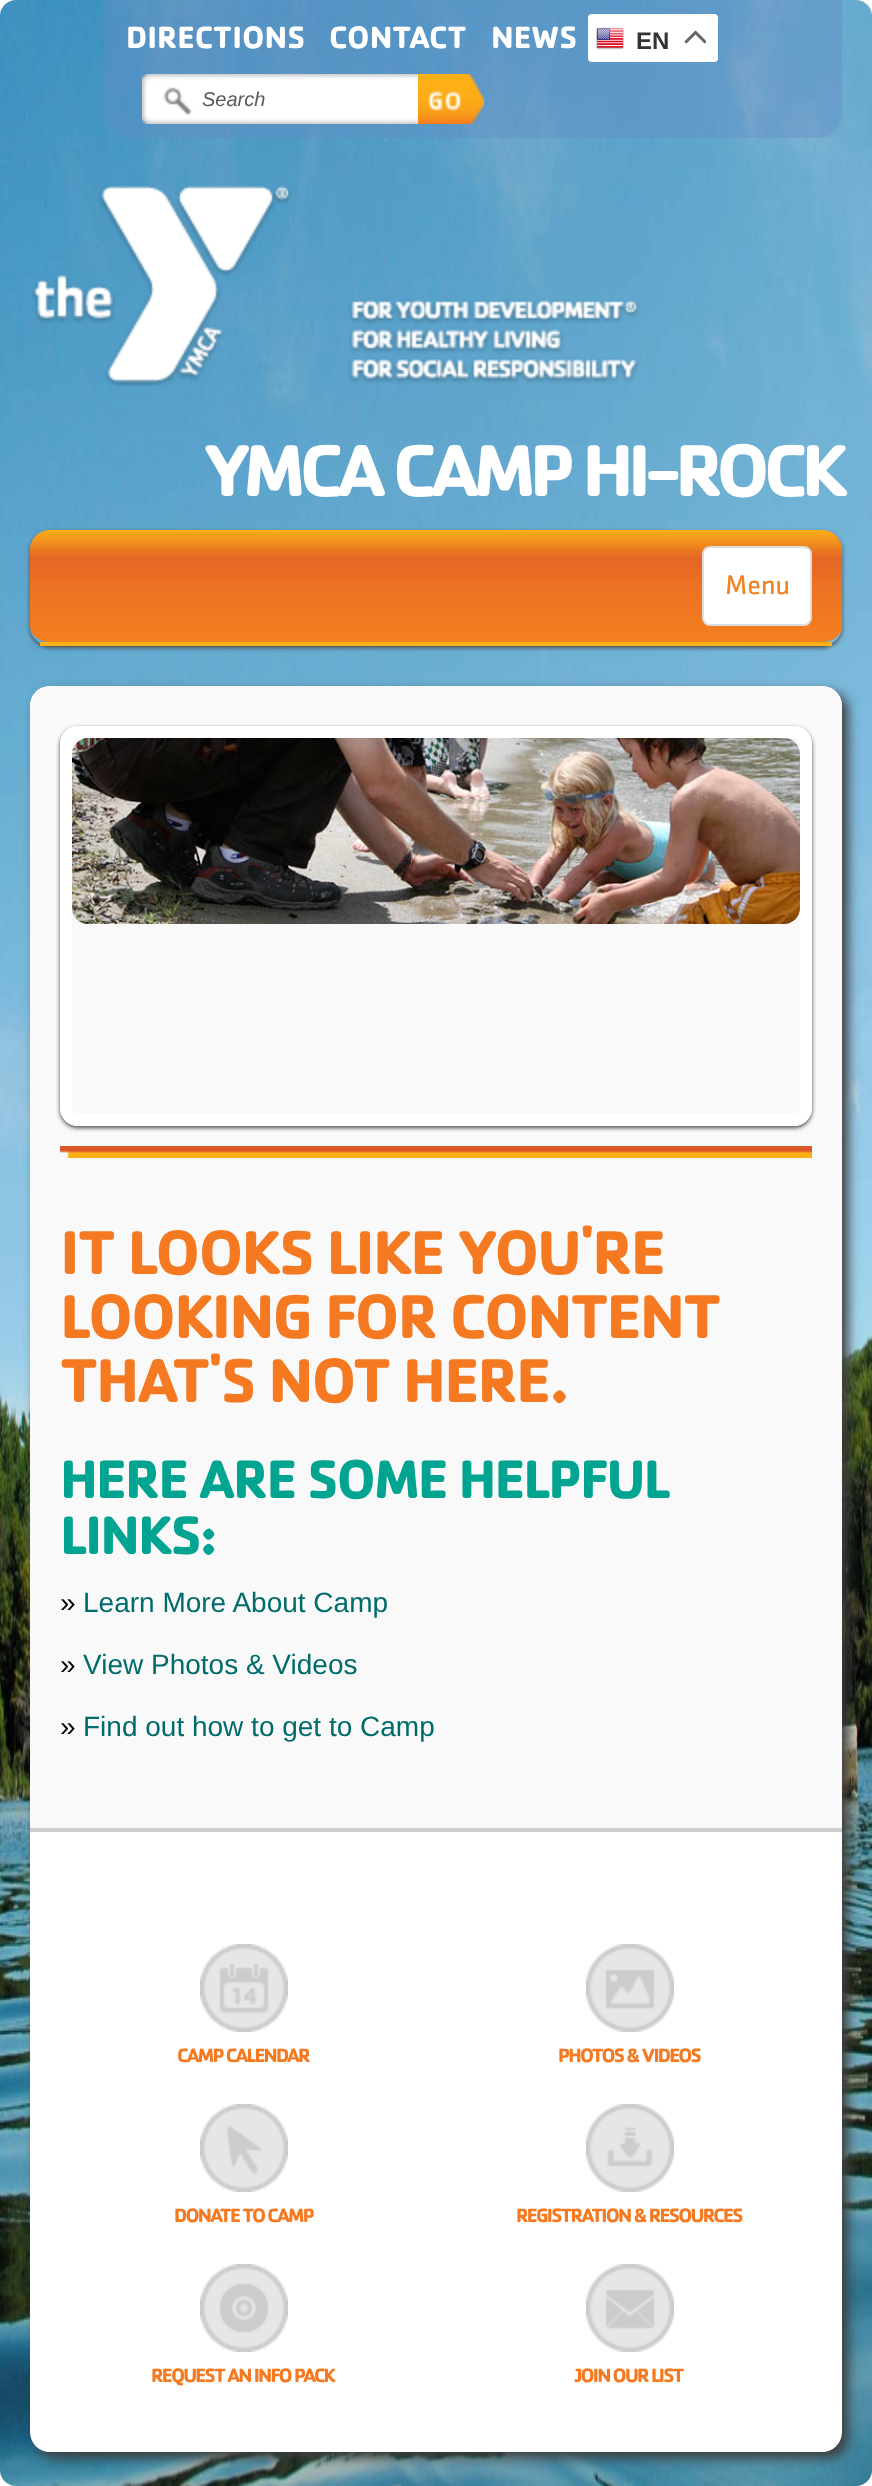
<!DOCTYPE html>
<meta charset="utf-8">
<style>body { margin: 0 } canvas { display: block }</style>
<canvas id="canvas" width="872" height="2486"></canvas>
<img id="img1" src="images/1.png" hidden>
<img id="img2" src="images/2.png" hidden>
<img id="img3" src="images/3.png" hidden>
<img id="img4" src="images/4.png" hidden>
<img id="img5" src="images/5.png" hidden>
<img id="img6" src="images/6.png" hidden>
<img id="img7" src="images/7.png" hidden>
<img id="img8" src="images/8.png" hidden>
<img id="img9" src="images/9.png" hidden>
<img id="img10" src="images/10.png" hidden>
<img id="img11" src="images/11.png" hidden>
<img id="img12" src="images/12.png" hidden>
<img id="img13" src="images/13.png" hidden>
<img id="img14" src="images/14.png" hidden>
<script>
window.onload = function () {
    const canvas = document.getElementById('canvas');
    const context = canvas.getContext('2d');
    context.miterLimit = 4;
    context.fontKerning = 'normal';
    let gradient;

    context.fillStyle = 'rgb(255, 255, 255)';
    context.fillRect(0, 0, 872, 2486);
    context.drawImage(document.getElementById('img1'), 0, 0, 872, 2486);
    context.fillStyle = 'rgba(97, 140, 198, 0.4)';
    context.beginPath();
    context.roundRect(104, 0, 738, 138, [0, 0, 24, 24]);
    context.fill();
    context.fillStyle = 'rgb(255, 255, 255)';
    context.beginPath();
    context.roundRect(588, 14, 130, 48, 4);
    context.fill();
    context.drawImage(document.getElementById('img2'), 596, 27, 28, 23);
    context.drawImage(document.getElementById('img3'), 684, 30, 22, 14);
    context.drawImage(document.getElementById('img4'), 142, 74, 276, 50);
    context.drawImage(document.getElementById('img5'), 418, 74, 66, 50);
    context.drawImage(document.getElementById('img6'), 32, 186, 607, 200);
    context.save();
    context.beginPath();
    context.moveTo(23, 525);
    context.lineTo(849, 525);
    context.lineTo(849, 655);
    context.lineTo(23, 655);
    context.closePath();
    context.moveTo(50, 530);
    context.lineTo(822, 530);
    context.bezierCurveTo(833, 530, 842, 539, 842, 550);
    context.lineTo(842, 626);
    context.bezierCurveTo(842, 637, 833, 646, 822, 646);
    context.lineTo(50, 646);
    context.bezierCurveTo(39, 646, 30, 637, 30, 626);
    context.lineTo(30, 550);
    context.bezierCurveTo(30, 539, 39, 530, 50, 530);
    context.closePath();
    context.clip('evenodd');
    context.fillStyle = 'rgb(77, 77, 77)';
    context.filter = 'blur(2px)';
    context.beginPath();
    context.roundRect(30, 532, 812, 116, 20);
    context.fill();
    context.filter = 'none';
    context.restore();
    gradient = context.createLinearGradient(436, 530, 436, 642);
    gradient.addColorStop(0, 'rgb(252, 175, 23)');
    gradient.addColorStop(0.25, 'rgb(227, 102, 37)');
    gradient.addColorStop(0.5, 'rgb(236, 114, 35)');
    gradient.addColorStop(0.75, 'rgb(240, 120, 33)');
    gradient.addColorStop(1, 'rgb(245, 128, 31)');
    context.fillStyle = gradient;
    context.beginPath();
    context.moveTo(50, 530);
    context.lineTo(822, 530);
    context.bezierCurveTo(833, 530, 842, 539, 842, 550);
    context.lineTo(842, 626);
    context.bezierCurveTo(842, 635, 833, 642, 822, 642);
    context.lineTo(50, 642);
    context.bezierCurveTo(39, 642, 30, 635, 30, 626);
    context.lineTo(30, 550);
    context.bezierCurveTo(30, 539, 39, 530, 50, 530);
    context.closePath();
    context.fill();
    context.fillStyle = 'rgb(252, 175, 23)';
    context.fillRect(40, 642, 792, 4);
    context.fillStyle = 'rgb(255, 255, 255)';
    context.beginPath();
    context.roundRect(703, 547, 108, 78, 7);
    context.fill();
    context.strokeStyle = 'rgb(221, 221, 221)';
    context.lineWidth = 2;
    context.stroke();
    context.fillStyle = 'rgb(61, 61, 61)';
    context.filter = 'blur(6px)';
    context.beginPath();
    context.roundRect(36, 692, 812, 1766, 20);
    context.fill();
    context.filter = 'none';
    context.fillStyle = 'rgb(255, 255, 255)';
    context.beginPath();
    context.roundRect(30, 686, 812, 1766, 20);
    context.fill();
    context.fillStyle = 'rgb(249, 249, 249)';
    context.beginPath();
    context.roundRect(30, 686, 812, 1142, [20, 20, 0, 0]);
    context.fill();
    context.save();
    context.beginPath();
    context.moveTo(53, 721);
    context.lineTo(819, 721);
    context.lineTo(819, 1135);
    context.lineTo(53, 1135);
    context.closePath();
    context.moveTo(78, 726);
    context.lineTo(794, 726);
    context.bezierCurveTo(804, 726, 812, 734, 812, 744);
    context.lineTo(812, 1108);
    context.bezierCurveTo(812, 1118, 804, 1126, 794, 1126);
    context.lineTo(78, 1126);
    context.bezierCurveTo(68, 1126, 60, 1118, 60, 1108);
    context.lineTo(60, 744);
    context.bezierCurveTo(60, 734, 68, 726, 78, 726);
    context.closePath();
    context.clip('evenodd');
    context.fillStyle = 'rgb(77, 77, 77)';
    context.filter = 'blur(2px)';
    context.beginPath();
    context.roundRect(60, 728, 752, 400, 18);
    context.fill();
    context.filter = 'none';
    context.restore();
    context.beginPath();
    context.roundRect(66, 732, 740, 388, 12);
    context.strokeStyle = 'rgb(255, 255, 255)';
    context.lineWidth = 12;
    context.stroke();
    context.drawImage(document.getElementById('img7'), 72, 738, 728, 186);
    context.drawImage(document.getElementById('img8'), 60, 1146, 752, 12);
    context.fillStyle = 'rgb(206, 206, 206)';
    context.fillRect(30, 1828, 812, 4);
    context.drawImage(document.getElementById('img9'), 200, 1944, 88, 88);
    context.drawImage(document.getElementById('img10'), 586, 1944, 88, 88);
    context.drawImage(document.getElementById('img11'), 200, 2104, 88, 88);
    context.drawImage(document.getElementById('img12'), 586, 2104, 88, 88);
    context.drawImage(document.getElementById('img13'), 200, 2264, 88, 88);
    context.drawImage(document.getElementById('img14'), 586, 2264, 88, 88);
    context.font = 'bold 32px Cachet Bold';
    context.fillStyle = 'rgb(255, 255, 255)';
    context.fillText('DIRECTIONS', 126, 48);
    context.fillText('CONTACT', 329, 48);
    context.fillText('NEWS', 491, 48);
    context.font = 'bold 24px Liberation Sans';
    context.fillStyle = 'rgb(51, 51, 51)';
    context.fillText('EN', 636, 49);
    context.font = 'italic 20px Liberation Sans';
    context.fillStyle = 'rgb(89, 89, 89)';
    context.fillText('Search', 202, 106);
    context.letterSpacing = '-6px';
    context.font = 'bold 76px Cachet Bold';
    context.fillStyle = 'rgb(255, 255, 255)';
    context.fillText('YMCA CAMP HI-ROCK', 203, 496);
    context.letterSpacing = '0px';
    context.font = '28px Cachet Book';
    context.fillStyle = 'rgb(245, 128, 31)';
    context.fillText('Menu', 725, 594);
    context.letterSpacing = '-2px';
    context.font = 'bold 64px Cachet Bold';
    context.fillStyle = 'rgb(244, 121, 32)';
    context.fillText('IT LOOKS LIKE YOU\'RE', 60, 1274);
    context.fillText('LOOKING FOR CONTENT', 60, 1338);
    context.fillText('THAT\'S NOT HERE.', 60, 1402);
    context.font = 'bold 56px Cachet Bold';
    context.fillStyle = 'rgb(1, 164, 144)';
    context.fillText('HERE ARE SOME HELPFUL', 60, 1498);
    context.fillText('LINKS:', 60, 1554);
    context.letterSpacing = '0px';
    context.font = '28px Liberation Sans';
    context.fillStyle = 'rgb(0, 0, 0)';
    context.fillText('»', 60, 1612);
    context.fillStyle = 'rgb(0, 107, 107)';
    context.fillText('Learn More About Camp', 83, 1612);
    context.fillStyle = 'rgb(0, 0, 0)';
    context.fillText('»', 60, 1674);
    context.fillStyle = 'rgb(0, 107, 107)';
    context.fillText('View Photos & Videos', 83, 1674);
    context.fillStyle = 'rgb(0, 0, 0)';
    context.fillText('»', 60, 1736);
    context.fillStyle = 'rgb(0, 107, 107)';
    context.fillText('Find out how to get to Camp', 83, 1736);
    context.letterSpacing = '-1.8px';
    context.font = 'bold 20px Cachet Bold';
    context.fillStyle = 'rgb(244, 121, 32)';
    context.fillText('CAMP CALENDAR', 177, 2062);
    context.fillText('PHOTOS & VIDEOS', 558, 2062);
    context.fillText('DONATE TO CAMP', 174, 2222);
    context.fillText('REGISTRATION & RESOURCES', 516, 2222);
    context.fillText('REQUEST AN INFO PACK', 151, 2382);
    context.fillText('JOIN OUR LIST', 575, 2382);
};
</script>
